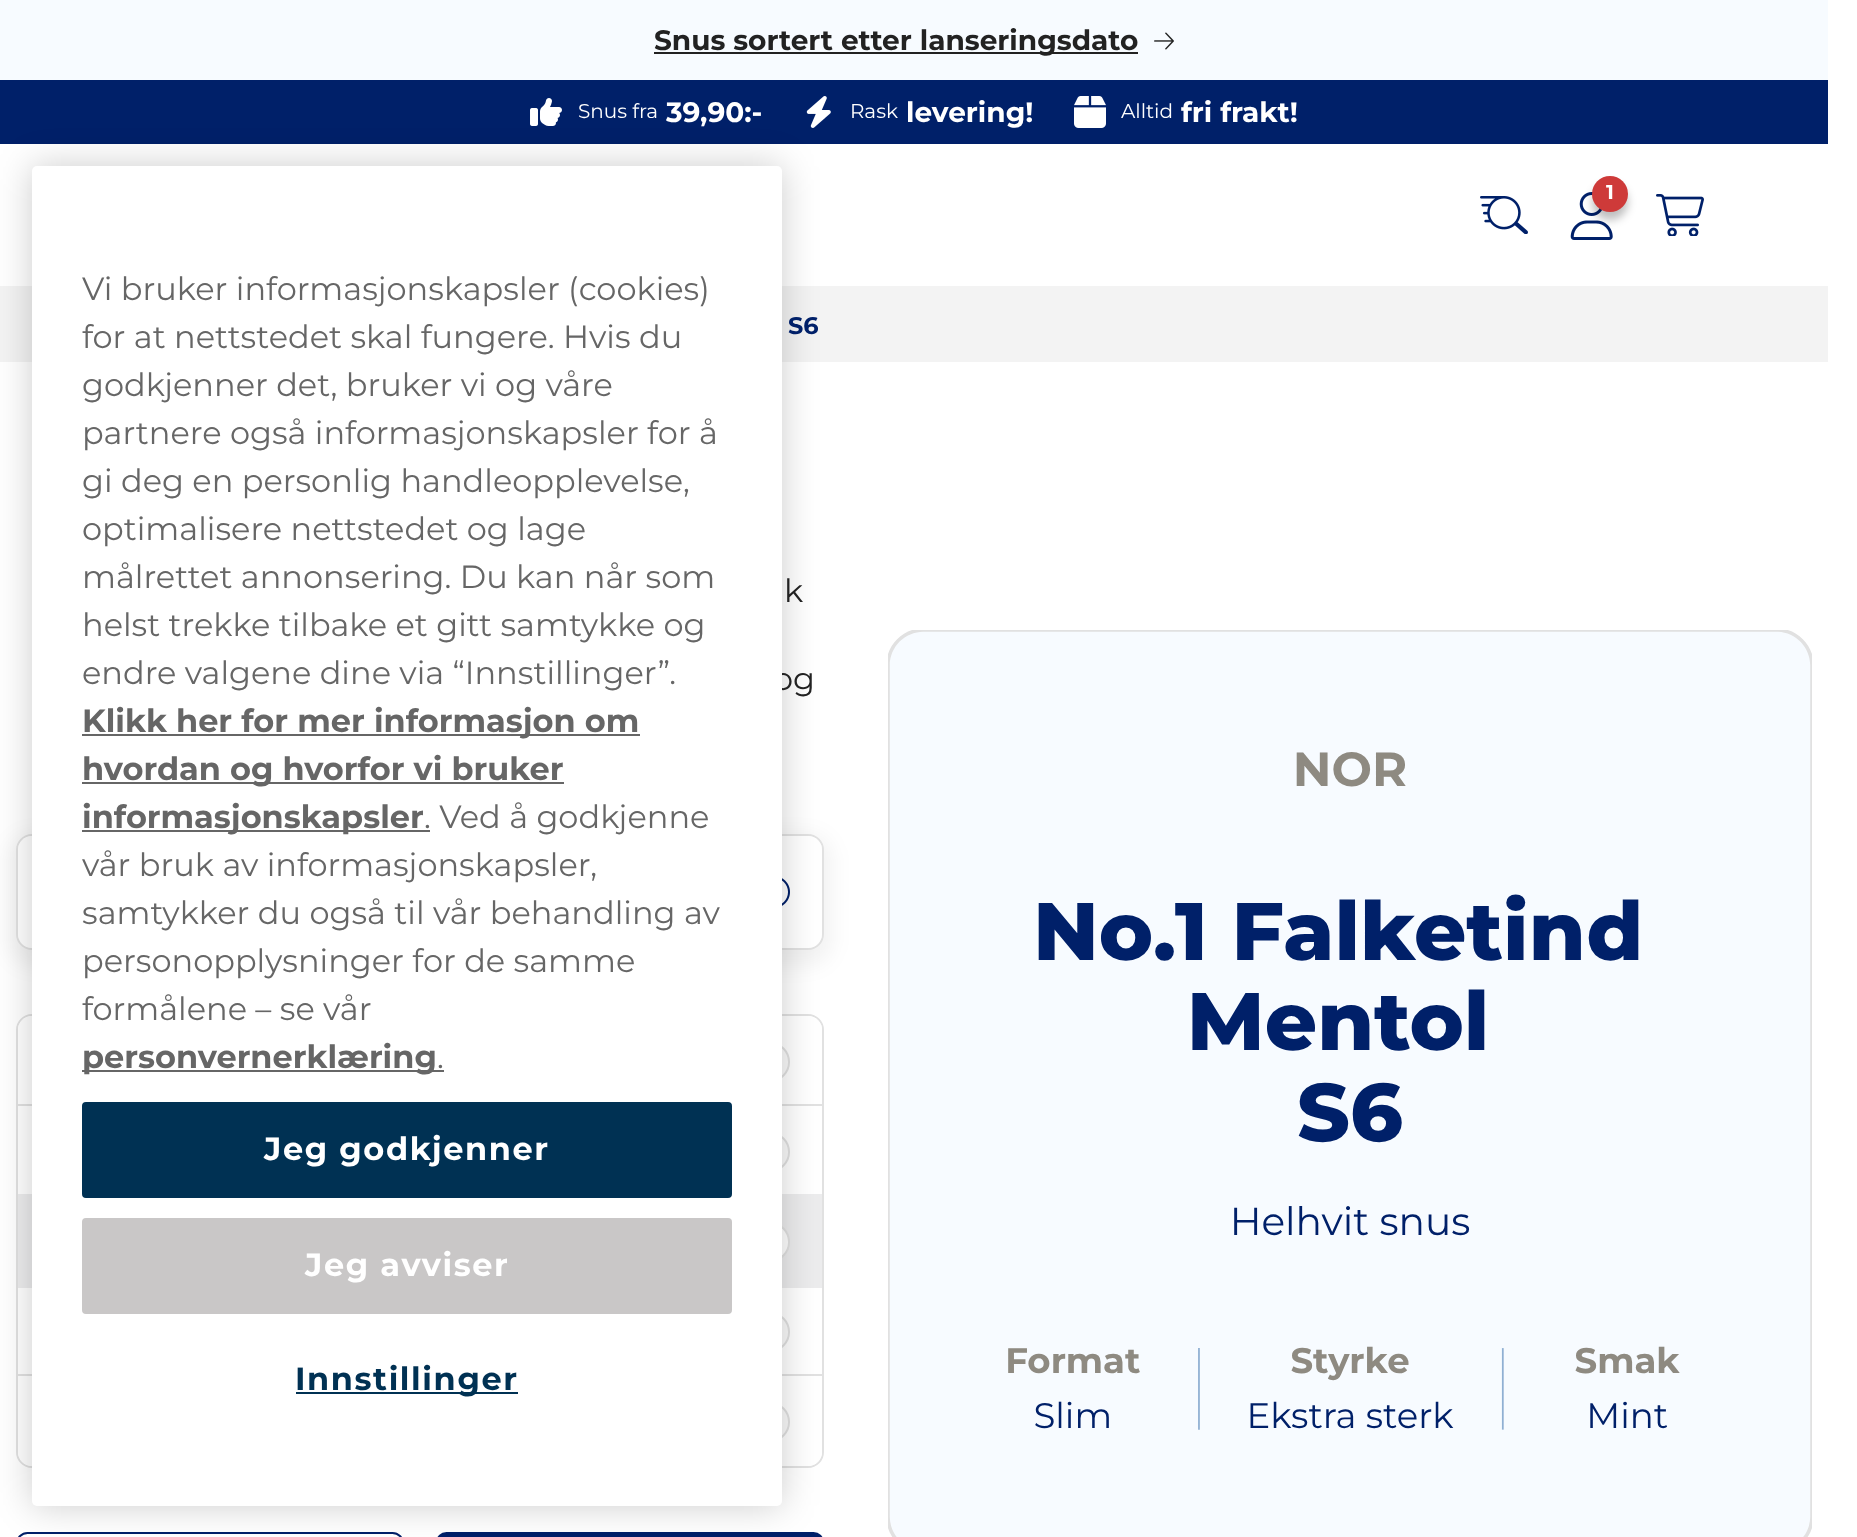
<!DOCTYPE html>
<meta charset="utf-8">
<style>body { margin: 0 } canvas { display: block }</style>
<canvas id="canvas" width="1857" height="1537"></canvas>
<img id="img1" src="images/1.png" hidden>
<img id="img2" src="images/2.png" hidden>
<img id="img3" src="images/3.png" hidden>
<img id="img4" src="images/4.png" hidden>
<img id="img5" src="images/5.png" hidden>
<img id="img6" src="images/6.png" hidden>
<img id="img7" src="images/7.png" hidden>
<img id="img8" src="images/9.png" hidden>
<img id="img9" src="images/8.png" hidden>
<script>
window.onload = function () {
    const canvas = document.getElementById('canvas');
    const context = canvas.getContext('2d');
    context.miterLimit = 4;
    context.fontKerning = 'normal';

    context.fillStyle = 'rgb(255, 255, 255)';
    context.fillRect(0, 0, 1857, 1537);
    context.fillStyle = 'rgb(247, 251, 255)';
    context.fillRect(0, 0, 1828, 80);
    context.fillStyle = 'rgb(34, 34, 34)';
    context.fillRect(654, 52, 484, 2);
    context.drawImage(document.getElementById('img1'), 1154, 32, 20, 18);
    context.fillStyle = 'rgb(0, 32, 105)';
    context.fillRect(0, 80, 1828, 64);
    context.drawImage(document.getElementById('img2'), 530, 98, 32, 28);
    context.drawImage(document.getElementById('img3'), 806, 96, 25, 32);
    context.drawImage(document.getElementById('img4'), 1074, 96, 32, 32);
    context.drawImage(document.getElementById('img5'), 1570, 192, 43, 48);
    context.fillStyle = 'rgba(0, 0, 0, 0.25)';
    context.filter = 'blur(4px)';
    context.beginPath();
    context.roundRect(1592, 184, 36, 36, 18);
    context.fill();
    context.filter = 'none';
    context.fillStyle = 'rgb(206, 58, 57)';
    context.beginPath();
    context.arc(1610, 194, 18, 0, 2 * Math.PI);
    context.fill();
    context.drawImage(document.getElementById('img6'), 1656, 194, 48, 42);
    context.drawImage(document.getElementById('img7'), 1480, 196, 48, 38);
    context.fillStyle = 'rgb(243, 243, 243)';
    context.fillRect(0, 286, 1828, 76);
    context.fillStyle = 'rgba(0, 0, 0, 0.05)';
    context.filter = 'blur(10px)';
    context.beginPath();
    context.roundRect(8, 834, 824, 132, 24);
    context.fill();
    context.filter = 'none';
    context.beginPath();
    context.roundRect(17, 835, 806, 114, 15);
    context.strokeStyle = 'rgb(225, 225, 225)';
    context.lineWidth = 2;
    context.stroke();
    context.fillStyle = 'rgb(255, 255, 255)';
    context.beginPath();
    context.roundRect(18, 836, 804, 112, 14);
    context.fill();
    context.drawImage(document.getElementById('img8'), 782, 878, 8, 28);
    context.beginPath();
    context.roundRect(17, 1015, 806, 452, 15);
    context.stroke();
    context.beginPath();
    context.roundRect(18, 1016, 804, 90, [14, 14, 0, 0]);
    context.fill();
    context.fillStyle = 'rgb(251, 251, 251)';
    context.beginPath();
    context.arc(770, 1062, 19, 0, 2 * Math.PI);
    context.fill();
    context.stroke();
    context.fillStyle = 'rgb(225, 225, 225)';
    context.beginPath();
    context.moveTo(822, 1198);
    context.lineTo(18, 1198);
    context.lineTo(18, 1196);
    context.lineTo(822, 1196);
    context.closePath();
    context.moveTo(18, 1106);
    context.lineTo(822, 1106);
    context.lineTo(822, 1104);
    context.lineTo(18, 1104);
    context.closePath();
    context.fill('evenodd');
    context.fillStyle = 'rgb(251, 251, 251)';
    context.beginPath();
    context.arc(770, 1152, 19, 0, 2 * Math.PI);
    context.fill();
    context.stroke();
    context.fillStyle = 'rgb(236, 236, 237)';
    context.fillRect(18, 1196, 804, 90);
    context.beginPath();
    context.moveTo(822, 1288);
    context.lineTo(18, 1288);
    context.lineTo(18, 1286);
    context.lineTo(822, 1286);
    context.closePath();
    context.moveTo(18, 1196);
    context.lineTo(822, 1196);
    context.lineTo(822, 1194);
    context.lineTo(18, 1194);
    context.closePath();
    context.fill('evenodd');
    context.fillStyle = 'rgb(255, 255, 255)';
    context.beginPath();
    context.arc(770, 1242, 19, 0, 2 * Math.PI);
    context.fill();
    context.stroke();
    context.fillStyle = 'rgb(251, 251, 251)';
    context.beginPath();
    context.arc(770, 1332, 19, 0, 2 * Math.PI);
    context.fill();
    context.stroke();
    context.fillStyle = 'rgb(255, 255, 255)';
    context.beginPath();
    context.roundRect(18, 1376, 804, 90, [0, 0, 14, 14]);
    context.fill();
    context.fillStyle = 'rgb(225, 225, 225)';
    context.fillRect(18, 1374, 804, 2);
    context.fillStyle = 'rgb(251, 251, 251)';
    context.beginPath();
    context.arc(770, 1422, 19, 0, 2 * Math.PI);
    context.fill();
    context.stroke();
    context.beginPath();
    context.roundRect(17, 1533, 386, 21, 15);
    context.strokeStyle = 'rgb(0, 32, 105)';
    context.stroke();
    context.fillStyle = 'rgb(0, 32, 105)';
    context.beginPath();
    context.roundRect(436, 1532, 388, 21, 16);
    context.fill();
    context.fillStyle = 'rgba(0, 0, 0, 0.2)';
    context.filter = 'blur(18px)';
    context.beginPath();
    context.roundRect(32, 166, 750, 1340, 5);
    context.fill();
    context.filter = 'none';
    context.drawImage(document.getElementById('img9'), 888, 630, 924, 907);
    context.font = 'bold 28px Montserrat';
    context.fillStyle = 'rgb(34, 34, 34)';
    context.fillText('Snus sortert etter lanseringsdato', 654, 50);
    context.font = '20px Montserrat';
    context.fillStyle = 'rgb(255, 255, 255)';
    context.fillText('Snus fra', 578, 118);
    context.font = 'bold 28px Montserrat';
    context.fillText('39,90:-', 666, 122);
    context.font = '20px Montserrat';
    context.fillText('Rask', 850, 118);
    context.font = 'bold 28px Montserrat';
    context.fillText('levering!', 906, 122);
    context.font = '20px Montserrat';
    context.fillText('Alltid', 1121, 118);
    context.font = 'bold 28px Montserrat';
    context.fillText('fri frakt!', 1181, 122);
    context.font = 'bold 20px Montserrat';
    context.fillText('1', 1606, 199);
    context.font = 'bold 24px Montserrat';
    context.fillStyle = 'rgb(0, 32, 105)';
    context.fillText('S6', 788, 334);
    context.font = '32px Montserrat';
    context.fillStyle = 'rgb(34, 34, 34)';
    context.fillText('k', 784, 602);
    context.fillText('og', 773, 690);
    context.fillStyle = 'rgb(255, 255, 255)';
    context.beginPath();
    context.roundRect(32, 166, 750, 1340, 5);
    context.fill();
    context.fillStyle = 'rgb(0, 49, 83)';
    context.fillRect(296, 1392, 222, 2);
    context.letterSpacing = '1.6px';
    context.font = 'bold 32px Montserrat';
    context.fillText('Innstillinger', 295, 1390);
    context.fillStyle = 'rgb(201, 199, 199)';
    context.beginPath();
    context.roundRect(83, 1219, 648, 94, 3);
    context.fill();
    context.strokeStyle = 'rgb(201, 199, 199)';
    context.stroke();
    context.fillStyle = 'rgb(255, 255, 255)';
    context.fillText('Jeg avviser', 305, 1276);
    context.fillStyle = 'rgb(0, 49, 83)';
    context.beginPath();
    context.roundRect(83, 1103, 648, 94, 3);
    context.fill();
    context.strokeStyle = 'rgb(0, 49, 83)';
    context.stroke();
    context.fillStyle = 'rgb(255, 255, 255)';
    context.fillText('Jeg godkjenner', 264, 1160);
    context.letterSpacing = '0px';
    context.font = '32px Montserrat';
    context.fillStyle = 'rgb(102, 102, 102)';
    context.fillText('.', 437, 1068);
    context.fillRect(82, 1070, 362, 2);
    context.font = 'bold 32px Montserrat';
    context.fillText('personvernerklæring', 82, 1068);
    context.font = '32px Montserrat';
    context.fillText('formålene – se vår', 82, 1020);
    context.fillText('personopplysninger for de samme', 82, 972);
    context.fillText('samtykker du også til vår behandling av', 82, 924);
    context.fillText('vår bruk av informasjonskapsler,', 82, 876);
    context.fillRect(82, 830, 348, 2);
    context.fillText('. Ved å godkjenne', 424, 828);
    context.font = 'bold 32px Montserrat';
    context.fillText('informasjonskapsler', 82, 828);
    context.fillRect(82, 782, 482, 2);
    context.fillText('hvordan og hvorfor vi bruker', 82, 780);
    context.fillRect(82, 734, 558, 2);
    context.fillText('Klikk her for mer informasjon om', 82, 732);
    context.font = '32px Montserrat';
    context.fillText('endre valgene dine via “Innstillinger”.', 82, 684);
    context.fillText('helst trekke tilbake et gitt samtykke og', 82, 636);
    context.fillText('målrettet annonsering. Du kan når som', 82, 588);
    context.fillText('optimalisere nettstedet og lage', 82, 540);
    context.fillText('gi deg en personlig handleopplevelse,', 82, 492);
    context.fillText('partnere også informasjonskapsler for å', 82, 444);
    context.fillText('godkjenner det, bruker vi og våre', 82, 396);
    context.fillText('for at nettstedet skal fungere. Hvis du', 82, 348);
    context.fillText('Vi bruker informasjonskapsler (cookies)', 82, 300);
};
</script>
